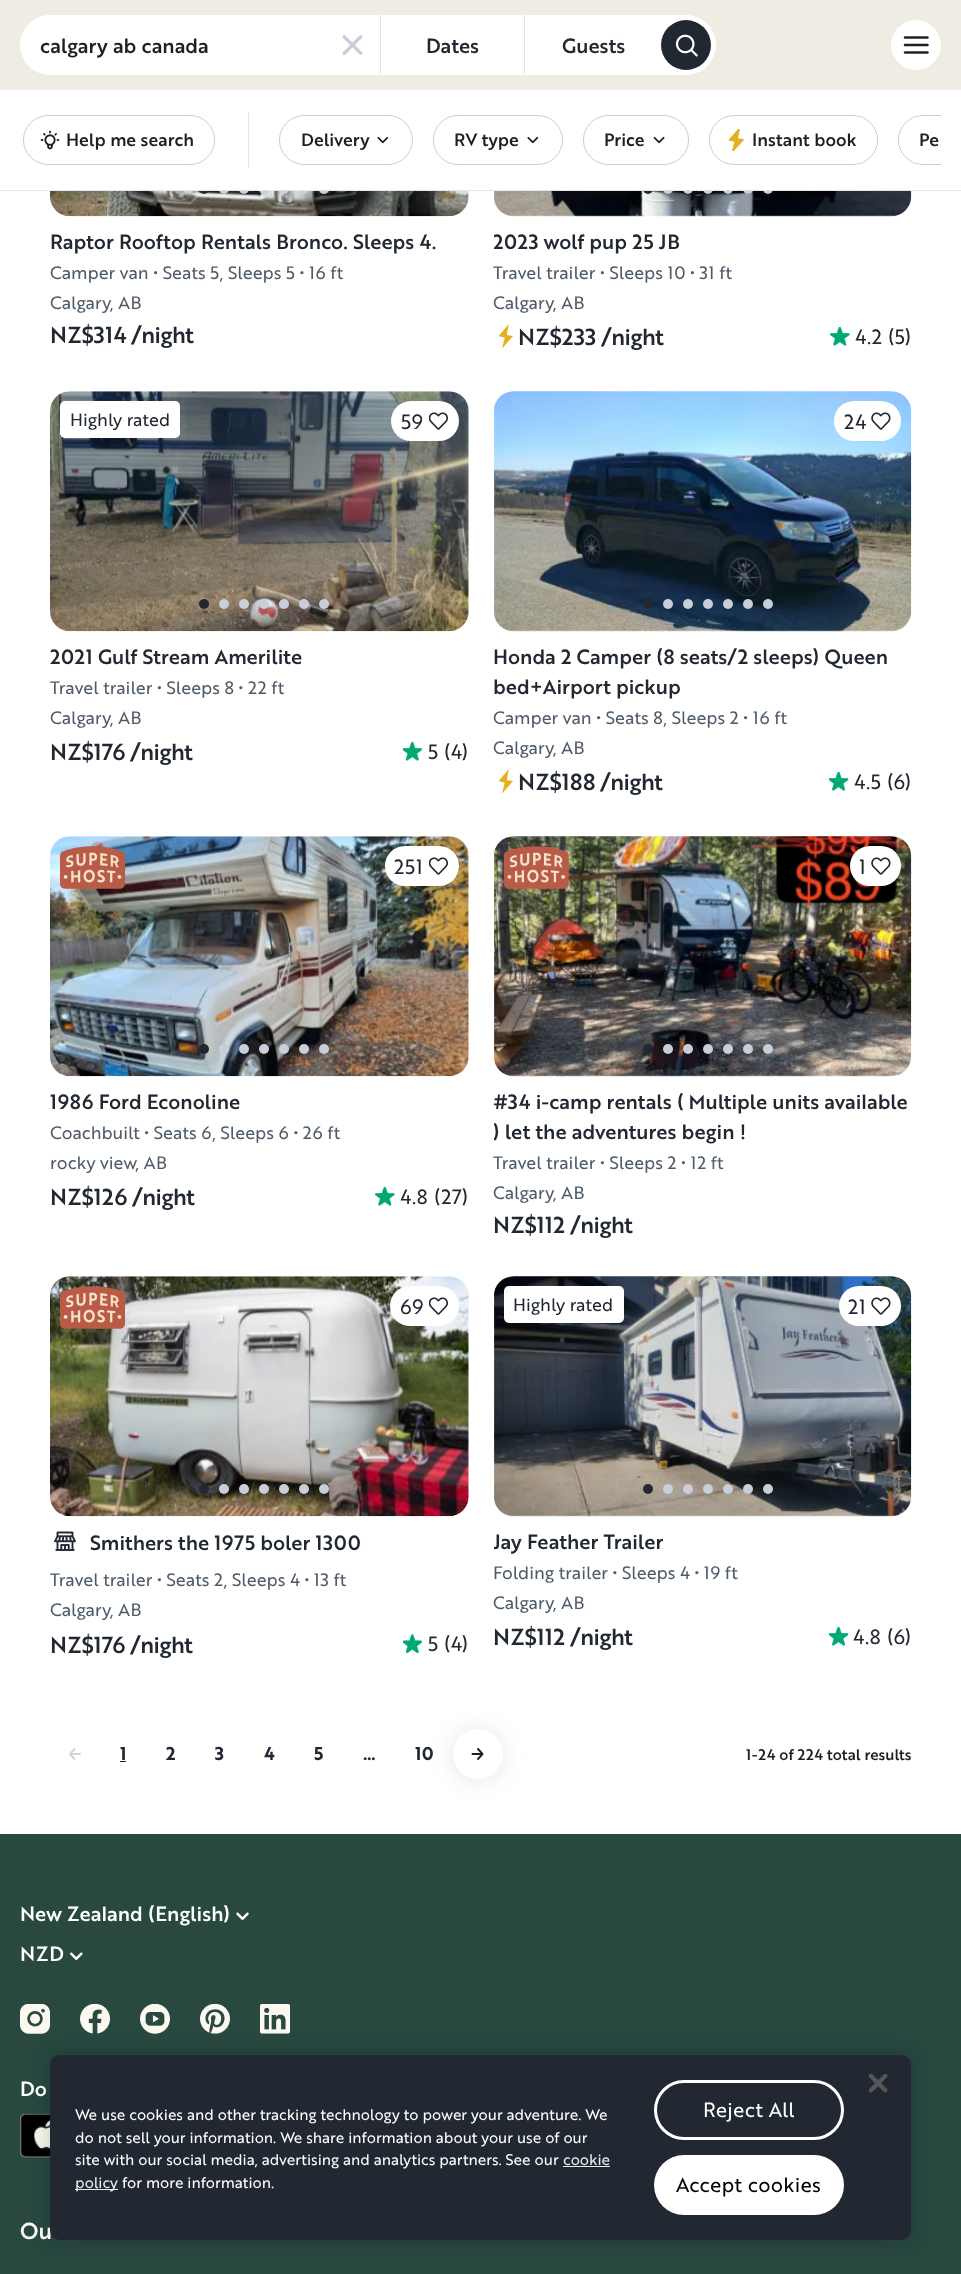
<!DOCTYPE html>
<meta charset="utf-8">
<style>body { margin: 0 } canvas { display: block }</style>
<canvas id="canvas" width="961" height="2274"></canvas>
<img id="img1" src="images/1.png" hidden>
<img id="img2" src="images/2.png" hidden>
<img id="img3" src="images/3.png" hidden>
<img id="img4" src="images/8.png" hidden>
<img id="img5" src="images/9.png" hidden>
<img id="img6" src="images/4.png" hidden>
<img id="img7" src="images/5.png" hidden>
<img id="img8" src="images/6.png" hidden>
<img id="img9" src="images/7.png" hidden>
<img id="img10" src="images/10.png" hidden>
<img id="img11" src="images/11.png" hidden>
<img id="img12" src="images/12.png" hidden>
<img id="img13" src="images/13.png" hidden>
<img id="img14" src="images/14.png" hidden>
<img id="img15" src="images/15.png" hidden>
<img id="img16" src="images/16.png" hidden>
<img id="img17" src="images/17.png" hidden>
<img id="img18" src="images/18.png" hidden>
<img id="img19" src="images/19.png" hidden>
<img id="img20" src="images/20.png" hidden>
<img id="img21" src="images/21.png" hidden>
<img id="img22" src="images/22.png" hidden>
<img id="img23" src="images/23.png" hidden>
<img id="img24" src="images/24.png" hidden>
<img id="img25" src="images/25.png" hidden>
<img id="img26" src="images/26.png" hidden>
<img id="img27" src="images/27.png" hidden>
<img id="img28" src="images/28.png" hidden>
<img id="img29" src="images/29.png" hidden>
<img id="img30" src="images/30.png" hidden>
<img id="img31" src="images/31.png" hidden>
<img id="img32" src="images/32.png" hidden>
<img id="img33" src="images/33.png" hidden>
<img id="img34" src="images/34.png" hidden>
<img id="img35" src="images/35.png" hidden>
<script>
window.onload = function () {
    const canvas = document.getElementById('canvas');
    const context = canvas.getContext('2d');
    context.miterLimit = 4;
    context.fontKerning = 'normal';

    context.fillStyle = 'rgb(255, 255, 255)';
    context.fillRect(0, 0, 961, 2274);
    context.fillStyle = 'rgb(238, 236, 227)';
    context.fillRect(0, 0, 961, 90);
    context.fillStyle = 'rgb(255, 255, 255)';
    context.beginPath();
    context.roundRect(20, 15, 696, 60, 30);
    context.fill();
    context.drawImage(document.getElementById('img1'), 342, 35, 21, 20);
    context.fillStyle = 'rgb(227, 231, 237)';
    context.fillRect(380, 15, 1, 60);
    context.fillRect(524, 15, 1, 60);
    context.fillStyle = 'rgb(33, 40, 49)';
    context.beginPath();
    context.arc(686, 45, 25, 0, 2 * Math.PI);
    context.fill();
    context.drawImage(document.getElementById('img2'), 675, 34, 23, 23);
    context.fillStyle = 'rgb(255, 255, 255)';
    context.beginPath();
    context.arc(916, 45, 25, 0, 2 * Math.PI);
    context.fill();
    context.drawImage(document.getElementById('img3'), 903, 36, 26, 18);
    context.drawImage(document.getElementById('img4'), 50, 191, 419, 26);
    context.fillStyle = 'rgb(33, 40, 49)';
    context.beginPath();
    context.arc(204, 189, 5, 0, 2 * Math.PI);
    context.fill();
    context.fillStyle = 'rgb(200, 206, 218)';
    context.beginPath();
    context.arc(224, 189, 5, 0, 2 * Math.PI);
    context.fill();
    context.beginPath();
    context.arc(244, 189, 5, 0, 2 * Math.PI);
    context.fill();
    context.beginPath();
    context.arc(264, 189, 5, 0, 2 * Math.PI);
    context.fill();
    context.beginPath();
    context.arc(284, 189, 5, 0, 2 * Math.PI);
    context.fill();
    context.beginPath();
    context.arc(304, 189, 5, 0, 2 * Math.PI);
    context.fill();
    context.beginPath();
    context.arc(324, 189, 5, 0, 2 * Math.PI);
    context.fill();
    context.drawImage(document.getElementById('img5'), 494, 191, 418, 26);
    context.fillStyle = 'rgb(33, 40, 49)';
    context.beginPath();
    context.arc(648, 189, 5, 0, 2 * Math.PI);
    context.fill();
    context.fillStyle = 'rgb(200, 206, 218)';
    context.beginPath();
    context.arc(668, 189, 5, 0, 2 * Math.PI);
    context.fill();
    context.beginPath();
    context.arc(688, 189, 5, 0, 2 * Math.PI);
    context.fill();
    context.beginPath();
    context.arc(708, 189, 5, 0, 2 * Math.PI);
    context.fill();
    context.beginPath();
    context.arc(728, 189, 5, 0, 2 * Math.PI);
    context.fill();
    context.beginPath();
    context.arc(748, 189, 5, 0, 2 * Math.PI);
    context.fill();
    context.beginPath();
    context.arc(768, 189, 5, 0, 2 * Math.PI);
    context.fill();
    context.fillStyle = 'rgb(255, 255, 255)';
    context.fillRect(199, 184, 574, 6);
    context.fillStyle = 'rgb(227, 231, 237)';
    context.fillRect(0, 190, 961, 1);
    context.fillRect(248, 113, 1, 55);
    context.beginPath();
    context.roundRect(23.5, 115.5, 191, 49, 24.5);
    context.strokeStyle = 'rgb(200, 206, 218)';
    context.stroke();
    context.drawImage(document.getElementById('img6'), 40, 130, 20, 20);
    context.beginPath();
    context.roundRect(279.5, 115.5, 133, 49, 24.5);
    context.stroke();
    context.drawImage(document.getElementById('img7'), 377, 136, 12, 8);
    context.beginPath();
    context.roundRect(433.5, 115.5, 129, 49, 24.5);
    context.stroke();
    context.drawImage(document.getElementById('img7'), 527, 136, 12, 8);
    context.beginPath();
    context.roundRect(583.5, 115.5, 105, 49, 24.5);
    context.stroke();
    context.drawImage(document.getElementById('img8'), 653, 136, 12, 8);
    context.beginPath();
    context.roundRect(709.5, 115.5, 168, 49, 24.5);
    context.stroke();
    context.drawImage(document.getElementById('img9'), 728, 129, 16, 22);
    context.save();
    context.beginPath();
    context.rect(20, 90, 921, 100);
    context.clip();
    context.beginPath();
    context.roundRect(898.5, 115.5, 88, 49, 24.5);
    context.stroke();
    context.restore();
    context.drawImage(document.getElementById('img10'), 498, 324, 15, 24);
    context.drawImage(document.getElementById('img11'), 830, 326, 20, 20);
    context.drawImage(document.getElementById('img12'), 50, 391, 419, 241);
    context.fillStyle = 'rgb(255, 255, 255)';
    context.beginPath();
    context.roundRect(60, 401, 120, 37, 5);
    context.fill();
    context.beginPath();
    context.roundRect(391, 401, 68, 40, 20);
    context.fill();
    context.drawImage(document.getElementById('img13'), 429, 412, 19, 18);
    context.fillStyle = 'rgb(33, 40, 49)';
    context.beginPath();
    context.arc(204, 604, 5, 0, 2 * Math.PI);
    context.fill();
    context.fillStyle = 'rgb(200, 206, 218)';
    context.beginPath();
    context.arc(224, 604, 5, 0, 2 * Math.PI);
    context.fill();
    context.beginPath();
    context.arc(244, 604, 5, 0, 2 * Math.PI);
    context.fill();
    context.beginPath();
    context.arc(264, 604, 5, 0, 2 * Math.PI);
    context.fill();
    context.beginPath();
    context.arc(284, 604, 5, 0, 2 * Math.PI);
    context.fill();
    context.beginPath();
    context.arc(304, 604, 5, 0, 2 * Math.PI);
    context.fill();
    context.beginPath();
    context.arc(324, 604, 5, 0, 2 * Math.PI);
    context.fill();
    context.drawImage(document.getElementById('img14'), 403, 741, 19, 20);
    context.drawImage(document.getElementById('img15'), 494, 391, 418, 241);
    context.fillStyle = 'rgb(255, 255, 255)';
    context.beginPath();
    context.roundRect(834, 401, 67, 40, 20);
    context.fill();
    context.drawImage(document.getElementById('img16'), 871, 412, 20, 18);
    context.fillStyle = 'rgb(33, 40, 49)';
    context.beginPath();
    context.arc(648, 604, 5, 0, 2 * Math.PI);
    context.fill();
    context.fillStyle = 'rgb(200, 206, 218)';
    context.beginPath();
    context.arc(668, 604, 5, 0, 2 * Math.PI);
    context.fill();
    context.beginPath();
    context.arc(688, 604, 5, 0, 2 * Math.PI);
    context.fill();
    context.beginPath();
    context.arc(708, 604, 5, 0, 2 * Math.PI);
    context.fill();
    context.beginPath();
    context.arc(728, 604, 5, 0, 2 * Math.PI);
    context.fill();
    context.beginPath();
    context.arc(748, 604, 5, 0, 2 * Math.PI);
    context.fill();
    context.beginPath();
    context.arc(768, 604, 5, 0, 2 * Math.PI);
    context.fill();
    context.drawImage(document.getElementById('img10'), 498, 769, 15, 24);
    context.drawImage(document.getElementById('img17'), 829, 771, 20, 20);
    context.drawImage(document.getElementById('img18'), 50, 836, 419, 241);
    context.drawImage(document.getElementById('img19'), 60, 846, 65, 43);
    context.fillStyle = 'rgb(255, 255, 255)';
    context.beginPath();
    context.roundRect(385, 846, 74, 40, 20);
    context.fill();
    context.drawImage(document.getElementById('img13'), 429, 857, 19, 18);
    context.fillStyle = 'rgb(33, 40, 49)';
    context.beginPath();
    context.arc(204, 1049, 5, 0, 2 * Math.PI);
    context.fill();
    context.fillStyle = 'rgb(200, 206, 218)';
    context.beginPath();
    context.arc(224, 1049, 5, 0, 2 * Math.PI);
    context.fill();
    context.beginPath();
    context.arc(244, 1049, 5, 0, 2 * Math.PI);
    context.fill();
    context.beginPath();
    context.arc(264, 1049, 5, 0, 2 * Math.PI);
    context.fill();
    context.beginPath();
    context.arc(284, 1049, 5, 0, 2 * Math.PI);
    context.fill();
    context.beginPath();
    context.arc(304, 1049, 5, 0, 2 * Math.PI);
    context.fill();
    context.beginPath();
    context.arc(324, 1049, 5, 0, 2 * Math.PI);
    context.fill();
    context.drawImage(document.getElementById('img11'), 375, 1186, 20, 20);
    context.drawImage(document.getElementById('img20'), 494, 836, 418, 241);
    context.drawImage(document.getElementById('img21'), 504, 846, 65, 43);
    context.fillStyle = 'rgb(255, 255, 255)';
    context.beginPath();
    context.roundRect(850, 846, 51, 40, 20);
    context.fill();
    context.drawImage(document.getElementById('img16'), 871, 857, 20, 18);
    context.fillStyle = 'rgb(33, 40, 49)';
    context.beginPath();
    context.arc(648, 1049, 5, 0, 2 * Math.PI);
    context.fill();
    context.fillStyle = 'rgb(200, 206, 218)';
    context.beginPath();
    context.arc(668, 1049, 5, 0, 2 * Math.PI);
    context.fill();
    context.beginPath();
    context.arc(688, 1049, 5, 0, 2 * Math.PI);
    context.fill();
    context.beginPath();
    context.arc(708, 1049, 5, 0, 2 * Math.PI);
    context.fill();
    context.beginPath();
    context.arc(728, 1049, 5, 0, 2 * Math.PI);
    context.fill();
    context.beginPath();
    context.arc(748, 1049, 5, 0, 2 * Math.PI);
    context.fill();
    context.beginPath();
    context.arc(768, 1049, 5, 0, 2 * Math.PI);
    context.fill();
    context.drawImage(document.getElementById('img22'), 50, 1276, 419, 241);
    context.drawImage(document.getElementById('img23'), 60, 1286, 65, 43);
    context.fillStyle = 'rgb(255, 255, 255)';
    context.beginPath();
    context.roundRect(390, 1286, 69, 40, 20);
    context.fill();
    context.drawImage(document.getElementById('img13'), 429, 1297, 19, 18);
    context.fillStyle = 'rgb(33, 40, 49)';
    context.beginPath();
    context.arc(204, 1489, 5, 0, 2 * Math.PI);
    context.fill();
    context.fillStyle = 'rgb(200, 206, 218)';
    context.beginPath();
    context.arc(224, 1489, 5, 0, 2 * Math.PI);
    context.fill();
    context.beginPath();
    context.arc(244, 1489, 5, 0, 2 * Math.PI);
    context.fill();
    context.beginPath();
    context.arc(264, 1489, 5, 0, 2 * Math.PI);
    context.fill();
    context.beginPath();
    context.arc(284, 1489, 5, 0, 2 * Math.PI);
    context.fill();
    context.beginPath();
    context.arc(304, 1489, 5, 0, 2 * Math.PI);
    context.fill();
    context.beginPath();
    context.arc(324, 1489, 5, 0, 2 * Math.PI);
    context.fill();
    context.drawImage(document.getElementById('img24'), 54, 1531, 22, 20);
    context.drawImage(document.getElementById('img25'), 403, 1634, 19, 19);
    context.drawImage(document.getElementById('img26'), 494, 1276, 418, 241);
    context.fillStyle = 'rgb(255, 255, 255)';
    context.beginPath();
    context.roundRect(504, 1286, 120, 37, 5);
    context.fill();
    context.beginPath();
    context.roundRect(839, 1286, 62, 40, 20);
    context.fill();
    context.drawImage(document.getElementById('img16'), 871, 1297, 20, 18);
    context.fillStyle = 'rgb(33, 40, 49)';
    context.beginPath();
    context.arc(648, 1489, 5, 0, 2 * Math.PI);
    context.fill();
    context.fillStyle = 'rgb(200, 206, 218)';
    context.beginPath();
    context.arc(668, 1489, 5, 0, 2 * Math.PI);
    context.fill();
    context.beginPath();
    context.arc(688, 1489, 5, 0, 2 * Math.PI);
    context.fill();
    context.beginPath();
    context.arc(708, 1489, 5, 0, 2 * Math.PI);
    context.fill();
    context.beginPath();
    context.arc(728, 1489, 5, 0, 2 * Math.PI);
    context.fill();
    context.beginPath();
    context.arc(748, 1489, 5, 0, 2 * Math.PI);
    context.fill();
    context.beginPath();
    context.arc(768, 1489, 5, 0, 2 * Math.PI);
    context.fill();
    context.drawImage(document.getElementById('img17'), 829, 1626, 20, 20);
    context.fillStyle = 'rgb(33, 40, 49)';
    context.fillRect(120, 1761, 6, 1);
    context.fillStyle = 'rgba(0, 0, 0, 0.1)';
    context.filter = 'blur(12.5px)';
    context.beginPath();
    context.roundRect(453, 1730, 50, 50, 25);
    context.fill();
    context.filter = 'none';
    context.fillStyle = 'rgb(255, 255, 255)';
    context.beginPath();
    context.arc(478, 1754, 25, 0, 2 * Math.PI);
    context.fill();
    context.beginPath();
    context.moveTo(478, 1749);
    context.lineTo(482.5, 1754);
    context.moveTo(482.5, 1754);
    context.lineTo(478, 1759);
    context.moveTo(482.5, 1754);
    context.lineTo(472.5, 1754);
    context.strokeStyle = 'rgb(29, 31, 32)';
    context.lineWidth = 1.9;
    context.lineCap = 'round';
    context.lineJoin = 'round';
    context.stroke();
    context.beginPath();
    context.moveTo(74.5, 1759);
    context.lineTo(70, 1754);
    context.moveTo(70, 1754);
    context.lineTo(74.5, 1749);
    context.moveTo(70, 1754);
    context.lineTo(80, 1754);
    context.strokeStyle = 'rgb(211, 212, 214)';
    context.stroke();
    context.fillStyle = 'rgb(40, 72, 64)';
    context.fillRect(0, 1834, 961, 440);
    context.drawImage(document.getElementById('img27'), 236, 1912, 13, 8);
    context.drawImage(document.getElementById('img28'), 70, 1952, 13, 8);
    context.drawImage(document.getElementById('img29'), 20, 2004, 30, 30);
    context.drawImage(document.getElementById('img30'), 80, 2004, 30, 30);
    context.drawImage(document.getElementById('img31'), 140, 2004, 30, 30);
    context.drawImage(document.getElementById('img32'), 200, 2004, 30, 30);
    context.drawImage(document.getElementById('img33'), 260, 2004, 30, 30);
    context.drawImage(document.getElementById('img34'), 20, 2113, 30, 45);
    context.fillStyle = 'rgba(0, 0, 0, 0.2)';
    context.filter = 'blur(11px)';
    context.beginPath();
    context.roundRect(50, 2055, 861, 185, 10);
    context.fill();
    context.filter = 'none';
    context.font = '500 20px "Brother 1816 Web"';
    context.fillStyle = 'rgb(29, 31, 32)';
    context.fillText('calgary ab canada', 40, 53);
    context.fillStyle = 'rgb(33, 40, 49)';
    context.fillText('Dates', 426, 53);
    context.fillText('Guests', 562, 53);
    context.font = '500 17.5px "Brother 1816 Web"';
    context.fillStyle = 'rgb(29, 31, 32)';
    context.fillText('Help me search', 66, 146);
    context.fillText('Delivery', 301, 146);
    context.fillText('RV type', 454, 146);
    context.fillText('Price', 604, 146);
    context.fillText('Instant book', 752, 146);
    context.fillText('Pe', 919, 146);
    context.font = '500 20px "Brother 1816 Web"';
    context.fillStyle = 'rgb(33, 40, 49)';
    context.fillText('Raptor Rooftop Rentals Bronco. Sleeps 4.', 50, 249);
    context.font = '17.5px "Brother 1816 Web"';
    context.fillStyle = 'rgb(79, 91, 105)';
    context.fillText('Camper van • Seats 5, Sleeps 5 • 16 ft', 50, 279);
    context.fillText('Calgary, AB', 50, 309);
    context.letterSpacing = '-0.5px';
    context.font = '500 22.5px "Brother 1816 Web"';
    context.fillStyle = 'rgb(33, 40, 49)';
    context.fillText('NZ$314', 50, 343);
    context.fillText('/night', 131, 343);
    context.save();
    context.beginPath();
    context.rect(494, 226, 417, 30);
    context.clip();
    context.letterSpacing = '0px';
    context.font = '500 20px "Brother 1816 Web"';
    context.fillText('2023 wolf pup 25 JB', 493, 249);
    context.restore();
    context.letterSpacing = '0px';
    context.font = '17.5px "Brother 1816 Web"';
    context.fillStyle = 'rgb(79, 91, 105)';
    context.fillText('Travel trailer • Sleeps 10 • 31 ft', 493, 279);
    context.fillText('Calgary, AB', 493, 309);
    context.letterSpacing = '-0.5px';
    context.font = '500 22.5px "Brother 1816 Web"';
    context.fillStyle = 'rgb(33, 40, 49)';
    context.fillText('NZ$233', 518, 345);
    context.fillText('/night', 601, 345);
    context.letterSpacing = '0px';
    context.font = '20px "Brother 1816 Web"';
    context.fillText('4.2', 855, 344);
    context.fillText('(5', 888, 344);
    context.fillText(')', 905, 344);
    context.font = '17.5px "Brother 1816 Web"';
    context.fillText('Highly rated', 70, 426);
    context.font = '20px "Brother 1816 Web"';
    context.fillText('59', 401, 429);
    context.font = '500 20px "Brother 1816 Web"';
    context.fillText('2021 Gulf Stream Amerilite', 50, 664);
    context.font = '17.5px "Brother 1816 Web"';
    context.fillStyle = 'rgb(79, 91, 105)';
    context.fillText('Travel trailer • Sleeps 8 • 22 ft', 50, 694);
    context.fillText('Calgary, AB', 50, 724);
    context.letterSpacing = '-0.5px';
    context.font = '500 22.5px "Brother 1816 Web"';
    context.fillStyle = 'rgb(33, 40, 49)';
    context.fillText('NZ$176', 50, 760);
    context.fillText('/night', 130, 760);
    context.letterSpacing = '0px';
    context.font = '20px "Brother 1816 Web"';
    context.fillText('5', 428, 759);
    context.fillText('(4', 444, 759);
    context.fillText(')', 462, 759);
    context.fillText('24', 844, 429);
    context.font = '500 20px "Brother 1816 Web"';
    context.fillText('Honda 2 Camper (8 seats/2 sleeps) Queen', 493, 664);
    context.fillText('bed+Airport pickup', 493, 694);
    context.font = '17.5px "Brother 1816 Web"';
    context.fillStyle = 'rgb(79, 91, 105)';
    context.fillText('Camper van • Seats 8, Sleeps 2 • 16 ft', 493, 724);
    context.fillText('Calgary, AB', 493, 754);
    context.letterSpacing = '-0.5px';
    context.font = '500 22.5px "Brother 1816 Web"';
    context.fillStyle = 'rgb(33, 40, 49)';
    context.fillText('NZ$188', 518, 790);
    context.fillText('/night', 600, 790);
    context.letterSpacing = '0px';
    context.font = '20px "Brother 1816 Web"';
    context.fillText('4.5', 854, 789);
    context.fillText('(6', 887, 789);
    context.fillText(')', 905, 789);
    context.fillText('251', 394, 874);
    context.font = '500 20px "Brother 1816 Web"';
    context.fillText('1986 Ford Econoline', 50, 1109);
    context.font = '17.5px "Brother 1816 Web"';
    context.fillStyle = 'rgb(79, 91, 105)';
    context.fillText('Coachbuilt • Seats 6, Sleeps 6 • 26 ft', 50, 1139);
    context.fillText('rocky view, AB', 50, 1169);
    context.letterSpacing = '-0.5px';
    context.font = '500 22.5px "Brother 1816 Web"';
    context.fillStyle = 'rgb(33, 40, 49)';
    context.fillText('NZ$126', 50, 1205);
    context.fillText('/night', 132, 1205);
    context.letterSpacing = '0px';
    context.font = '20px "Brother 1816 Web"';
    context.fillText('4.8', 400, 1204);
    context.fillText('(27', 434, 1204);
    context.fillText(')', 462, 1204);
    context.fillText('1', 859, 874);
    context.font = '500 20px "Brother 1816 Web"';
    context.fillText('#34 i-camp rentals ( Multiple units available', 493, 1109);
    context.save();
    context.beginPath();
    context.rect(494, 1086, 417, 60);
    context.clip();
    context.fillText(') let the adventures begin !', 493, 1139);
    context.restore();
    context.font = '17.5px "Brother 1816 Web"';
    context.fillStyle = 'rgb(79, 91, 105)';
    context.fillText('Travel trailer • Sleeps 2 • 12 ft', 493, 1169);
    context.fillText('Calgary, AB', 493, 1199);
    context.letterSpacing = '-0.5px';
    context.font = '500 22.5px "Brother 1816 Web"';
    context.fillStyle = 'rgb(33, 40, 49)';
    context.fillText('NZ$112', 493, 1233);
    context.fillText('/night', 570, 1233);
    context.letterSpacing = '0px';
    context.font = '20px "Brother 1816 Web"';
    context.fillText('69', 400, 1314);
    context.font = '500 20px "Brother 1816 Web"';
    context.fillText('Smithers the 1975 boler 1300', 90, 1550);
    context.font = '17.5px "Brother 1816 Web"';
    context.fillStyle = 'rgb(79, 91, 105)';
    context.fillText('Travel trailer • Seats 2, Sleeps 4 • 13 ft', 50, 1586);
    context.fillText('Calgary, AB', 50, 1616);
    context.letterSpacing = '-0.5px';
    context.font = '500 22.5px "Brother 1816 Web"';
    context.fillStyle = 'rgb(33, 40, 49)';
    context.fillText('NZ$176', 50, 1653);
    context.fillText('/night', 130, 1653);
    context.letterSpacing = '0px';
    context.font = '20px "Brother 1816 Web"';
    context.fillText('5', 428, 1651);
    context.fillText('(4', 444, 1651);
    context.fillText(')', 462, 1651);
    context.font = '17.5px "Brother 1816 Web"';
    context.fillText('Highly rated', 513, 1311);
    context.font = '20px "Brother 1816 Web"';
    context.fillText('21', 848, 1314);
    context.save();
    context.beginPath();
    context.rect(494, 1526, 417, 30);
    context.clip();
    context.font = '500 20px "Brother 1816 Web"';
    context.fillText('Jay Feather Trailer', 493, 1549);
    context.restore();
    context.font = '17.5px "Brother 1816 Web"';
    context.fillStyle = 'rgb(79, 91, 105)';
    context.fillText('Folding trailer • Sleeps 4 • 19 ft', 493, 1579);
    context.fillText('Calgary, AB', 493, 1609);
    context.letterSpacing = '-0.5px';
    context.font = '500 22.5px "Brother 1816 Web"';
    context.fillStyle = 'rgb(33, 40, 49)';
    context.fillText('NZ$112', 493, 1645);
    context.fillText('/night', 570, 1645);
    context.letterSpacing = '0px';
    context.font = '20px "Brother 1816 Web"';
    context.fillText('4.8', 853, 1644);
    context.fillText('(6', 887, 1644);
    context.fillText(')', 905, 1644);
    context.font = 'bold 17.5px "Brother 1816 Web"';
    context.fillText('1', 120, 1760);
    context.fillText('2', 166, 1760);
    context.fillText('3', 215, 1760);
    context.fillText('4', 264, 1760);
    context.fillText('5', 314, 1760);
    context.fillText('…', 363, 1760);
    context.fillText('10', 415, 1760);
    context.font = '500 15px "Brother 1816 Web"';
    context.fillStyle = 'rgb(29, 31, 32)';
    context.fillText('1-24 of 224 total results', 746, 1760);
    context.font = '500 20px "Brother 1816 Web"';
    context.fillStyle = 'rgb(255, 255, 255)';
    context.fillText('New Zealand (English)', 20, 1921);
    context.fillText('NZD', 20, 1961);
    context.fillText('Do', 20, 2096);
    context.font = '500 22.5px "Brother 1816 Web"';
    context.fillStyle = 'rgb(251, 248, 239)';
    context.fillText('Ou', 20, 2239);
    context.fillStyle = 'rgb(33, 40, 49)';
    context.beginPath();
    context.roundRect(50, 2055, 861, 185, 10);
    context.fill();
    context.drawImage(document.getElementById('img35'), 869, 2074, 19, 19);
    context.font = '15px "Brother 1816 Web"';
    context.fillStyle = 'rgb(255, 255, 255)';
    context.fillText('We use cookies and other tracking technology to power your adventure. We', 75, 2120);
    context.fillText('do not sell your information. We share information about your use of our', 75, 2143);
    context.fillText('site with our social media, advertising and analytics partners. See our', 75, 2165);
    context.fillStyle = 'rgb(230, 240, 239)';
    context.fillText('cookie', 563, 2165);
    context.fillRect(563, 2166, 47, 1);
    context.fillRect(75, 2189, 43, 1);
    context.fillText('policy', 75, 2188);
    context.fillStyle = 'rgb(255, 255, 255)';
    context.fillText('for more information.', 122, 2188);
    context.beginPath();
    context.roundRect(655.5, 2081.5, 187, 57, 28.5);
    context.strokeStyle = 'rgb(255, 255, 255)';
    context.lineWidth = 3;
    context.lineJoin = 'miter';
    context.stroke();
    context.letterSpacing = '0.25px';
    context.font = '20px "Brother 1816 Web"';
    context.fillText('Reject All', 703, 2117);
    context.beginPath();
    context.roundRect(654, 2155, 190, 60, 30);
    context.fill();
    context.fillStyle = 'rgb(0, 0, 0)';
    context.fillText('Accept cookies', 676, 2192);
};
</script>
